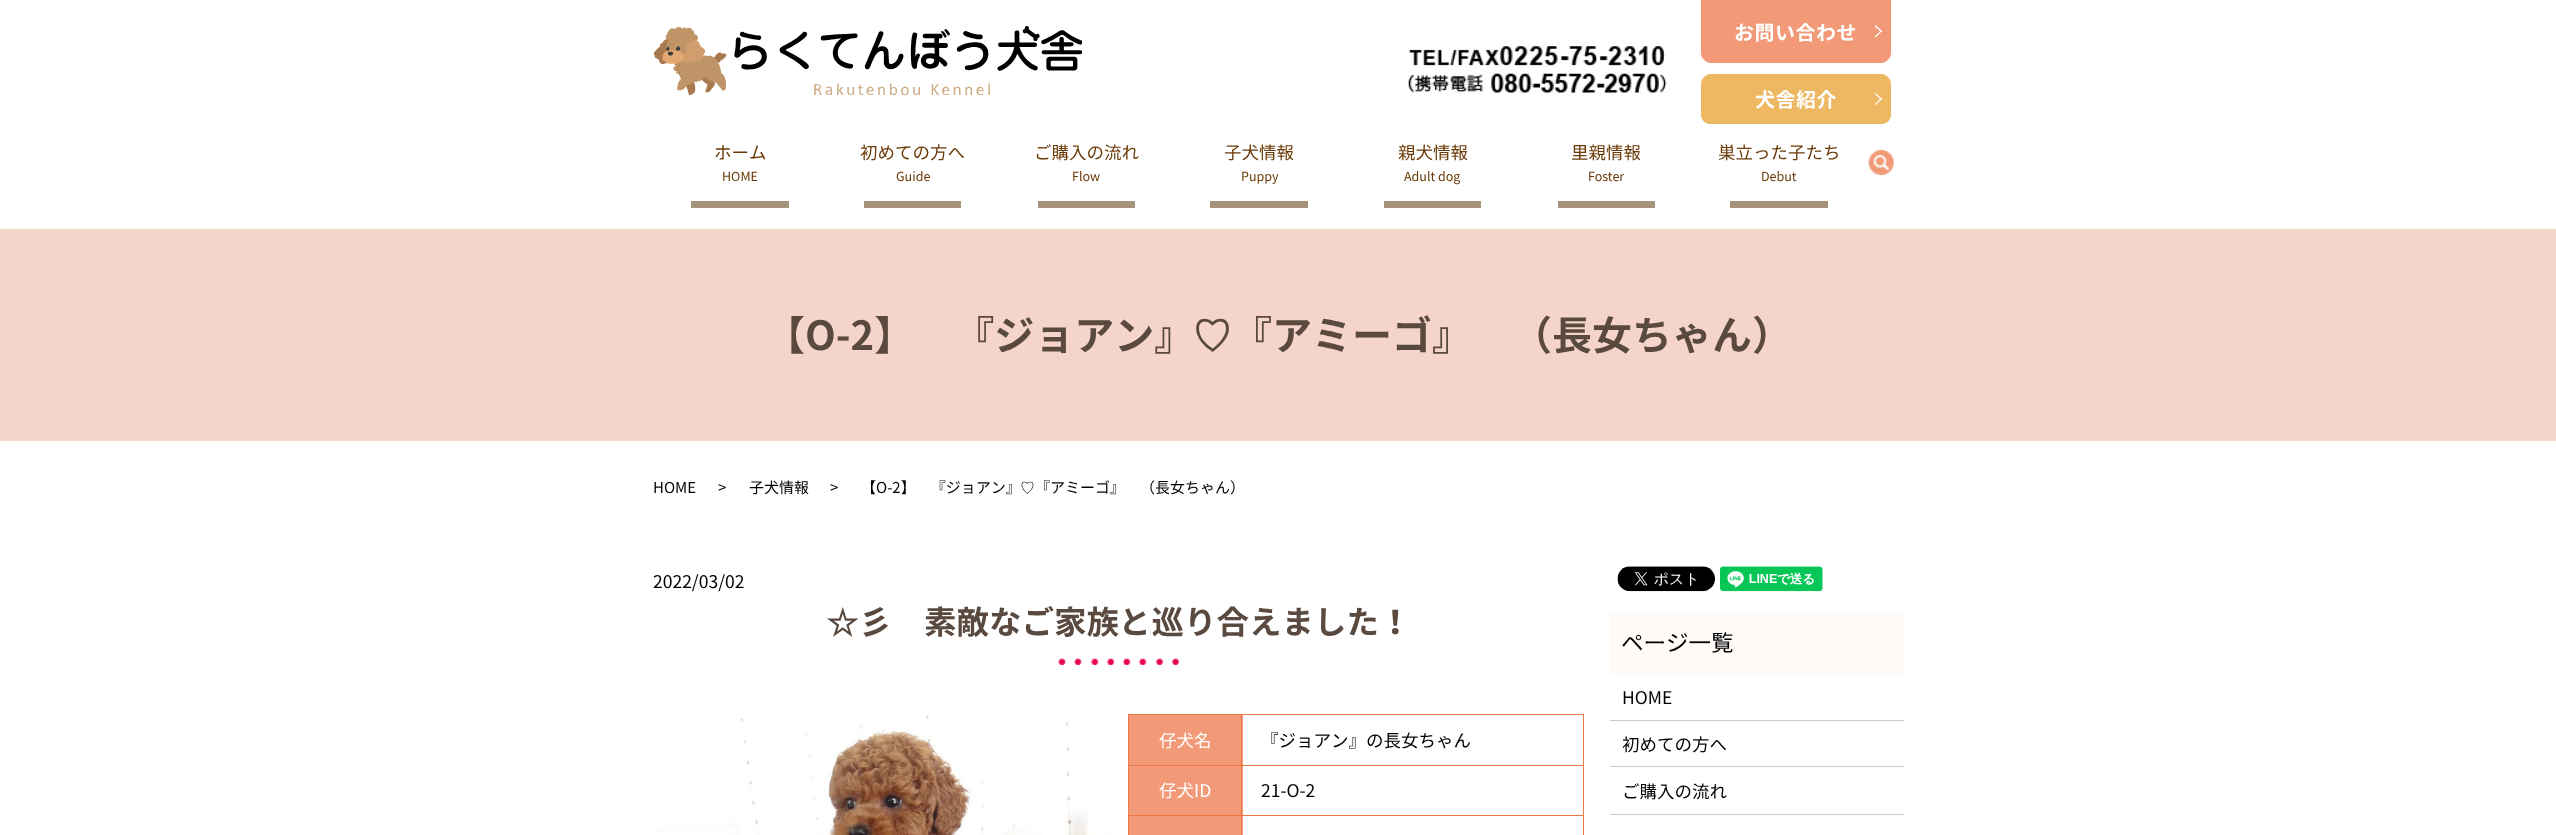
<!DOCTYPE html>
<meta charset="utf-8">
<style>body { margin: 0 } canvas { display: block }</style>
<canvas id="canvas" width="2556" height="835"></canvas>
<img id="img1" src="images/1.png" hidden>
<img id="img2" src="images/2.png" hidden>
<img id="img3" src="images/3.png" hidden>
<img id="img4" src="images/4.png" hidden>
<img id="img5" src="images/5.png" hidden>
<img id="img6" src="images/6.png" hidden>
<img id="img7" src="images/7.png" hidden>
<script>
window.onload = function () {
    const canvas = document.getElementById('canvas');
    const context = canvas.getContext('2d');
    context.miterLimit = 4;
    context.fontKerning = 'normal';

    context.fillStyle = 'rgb(255, 255, 255)';
    context.fillRect(0, 0, 2556, 835);
    context.drawImage(document.getElementById('img1'), 654, 26, 429, 70);
    context.drawImage(document.getElementById('img2'), 1408, 46, 259, 47);
    context.fillStyle = 'rgb(242, 154, 119)';
    context.beginPath();
    context.roundRect(1701.5, 0.5, 189, 62, [0, 0, 9.5, 9.5]);
    context.fill();
    context.strokeStyle = 'rgb(242, 154, 119)';
    context.stroke();
    context.fillStyle = 'rgb(255, 255, 255)';
    context.beginPath();
    context.moveTo(1875.5, 25);
    context.lineTo(1882, 31);
    context.lineTo(1881, 32);
    context.lineTo(1874.5, 26);
    context.closePath();
    context.fill();
    context.beginPath();
    context.moveTo(1881, 30.5);
    context.lineTo(1882, 31);
    context.lineTo(1875.5, 37.5);
    context.lineTo(1874.5, 36.5);
    context.closePath();
    context.fill();
    context.fillStyle = 'rgb(237, 184, 97)';
    context.beginPath();
    context.roundRect(1701, 74, 190, 50, 10);
    context.fill();
    context.beginPath();
    context.moveTo(1701, 84);
    context.lineTo(1701, 114);
    context.bezierCurveTo(1701, 120, 1705, 124, 1711, 124);
    context.lineTo(1881, 124);
    context.bezierCurveTo(1887, 124, 1891, 120, 1891, 114);
    context.lineTo(1891, 84);
    context.lineTo(1890, 80);
    context.lineTo(1890, 114);
    context.bezierCurveTo(1890, 119, 1886, 123, 1881, 123);
    context.lineTo(1711, 123);
    context.bezierCurveTo(1706, 123, 1702, 119, 1702, 114);
    context.lineTo(1702, 80);
    context.closePath();
    context.moveTo(1711, 74);
    context.lineTo(1707, 75);
    context.lineTo(1885, 75);
    context.lineTo(1881, 74);
    context.closePath();
    context.fill('evenodd');
    context.fillStyle = 'rgb(255, 255, 255)';
    context.beginPath();
    context.moveTo(1875.5, 93);
    context.lineTo(1882, 99);
    context.lineTo(1881, 100);
    context.lineTo(1874.5, 93.5);
    context.closePath();
    context.fill();
    context.beginPath();
    context.moveTo(1881, 98);
    context.lineTo(1882, 99);
    context.lineTo(1875.5, 105);
    context.lineTo(1874.5, 104.5);
    context.closePath();
    context.fill();
    context.fillStyle = 'rgb(166, 147, 124)';
    context.fillRect(691, 201, 98, 7);
    context.fillRect(864, 201, 97, 7);
    context.fillRect(1038, 201, 97, 7);
    context.fillRect(1210, 201, 98, 7);
    context.fillRect(1384, 201, 97, 7);
    context.fillRect(1558, 201, 97, 7);
    context.fillRect(1730, 201, 98, 7);
    context.drawImage(document.getElementById('img3'), 1868, 150, 26, 25);
    context.fillStyle = 'rgb(245, 213, 201)';
    context.fillRect(0, 229, 2556, 212);
    context.drawImage(document.getElementById('img4'), 1058, 658, 121, 7);
    context.fillStyle = 'rgb(254, 250, 248)';
    context.fillRect(1108, 714, 2, 121);
    context.drawImage(document.getElementById('img5'), 654, 714, 455, 121);
    context.fillStyle = 'rgb(242, 154, 119)';
    context.fillRect(1129, 715, 114, 50);
    context.fillStyle = 'rgb(238, 119, 72)';
    context.fillRect(1241, 714, 343, 1);
    context.fillRect(1241, 765, 343, 1);
    context.fillStyle = 'rgb(242, 154, 119)';
    context.fillRect(1129, 766, 114, 49);
    context.fillStyle = 'rgb(238, 119, 72)';
    context.fillRect(1241, 815, 343, 1);
    context.fillStyle = 'rgb(242, 154, 119)';
    context.fillRect(1129, 816, 114, 19);
    context.fillStyle = 'rgb(238, 119, 72)';
    context.fillRect(1241, 815, 1, 20);
    context.fillRect(1128, 815, 115, 1);
    context.fillRect(1241, 765, 1, 51);
    context.fillRect(1128, 765, 115, 1);
    context.fillRect(1241, 714, 1, 52);
    context.fillRect(1128, 714, 115, 1);
    context.fillRect(1128, 815, 1, 20);
    context.fillRect(1128, 765, 1, 51);
    context.fillRect(1128, 714, 1, 52);
    context.fillRect(1583, 815, 1, 20);
    context.fillRect(1583, 765, 1, 51);
    context.fillRect(1583, 714, 1, 52);
    context.drawImage(document.getElementById('img6'), 1617, 566, 98, 26);
    context.drawImage(document.getElementById('img7'), 1720, 566, 103, 26);
    context.fillStyle = 'rgb(254, 250, 248)';
    context.fillRect(1610, 611, 294, 63);
    context.fillStyle = 'rgb(204, 204, 204)';
    context.fillRect(1610, 720, 294, 1);
    context.fillRect(1610, 766, 294, 1);
    context.fillRect(1610, 814, 294, 1);
    context.letterSpacing = '0.5px';
    context.font = 'bold 20px Noto Sans JP';
    context.fillStyle = 'rgb(255, 255, 255)';
    context.fillText('お問い合わせ', 1734, 40);
    context.fillText('犬舎紹介', 1755, 107);
    context.letterSpacing = '0px';
    context.font = '17.5px Noto Sans JP';
    context.fillStyle = 'rgb(106, 57, 6)';
    context.fillText('ホーム', 714, 159);
    context.font = '12.5px Noto Sans JP';
    context.fillText('HOME', 722, 181);
    context.font = '17.5px Noto Sans JP';
    context.fillText('初めての方へ', 860, 159);
    context.font = '12.5px Noto Sans JP';
    context.fillText('Guide', 896, 181);
    context.font = '17.5px Noto Sans JP';
    context.fillText('ご購入の流れ', 1034, 159);
    context.font = '12.5px Noto Sans JP';
    context.fillText('Flow', 1072, 181);
    context.font = '17.5px Noto Sans JP';
    context.fillText('子犬情報', 1224, 159);
    context.font = '12.5px Noto Sans JP';
    context.fillText('Puppy', 1241, 181);
    context.font = '17.5px Noto Sans JP';
    context.fillText('親犬情報', 1398, 159);
    context.font = '12.5px Noto Sans JP';
    context.fillText('Adult dog', 1404, 181);
    context.font = '17.5px Noto Sans JP';
    context.fillText('里親情報', 1571, 159);
    context.font = '12.5px Noto Sans JP';
    context.fillText('Foster', 1588, 181);
    context.font = '17.5px Noto Sans JP';
    context.fillText('巣立った子たち', 1718, 159);
    context.font = '12.5px Noto Sans JP';
    context.fillText('Debut', 1761, 181);
    context.font = 'bold 40px Noto Sans JP';
    context.fillStyle = 'rgb(89, 73, 63)';
    context.fillText('【O-2】　『ジョアン』', 765, 350);
    context.font = 'bold 40px WenQuanYi Zen Hei';
    context.fillText('♡', 1192, 350);
    context.font = 'bold 40px Noto Sans JP';
    context.fillText('『アミーゴ』　（長女ちゃん）', 1232, 350);
    context.font = '15px Noto Sans JP';
    context.fillStyle = 'rgb(0, 0, 0)';
    context.fillText('HOME', 653, 493);
    context.fillText('>', 718, 493);
    context.fillText('子犬情報', 749, 493);
    context.fillText('>', 830, 493);
    context.fillText('【O-2】　『ジョアン』', 861, 493);
    context.font = '500 15px WenQuanYi Zen Hei';
    context.fillText('♡', 1020, 493);
    context.font = '15px Noto Sans JP';
    context.fillText('『アミーゴ』　（長女ちゃん）', 1035, 493);
    context.font = '17.5px Noto Sans JP';
    context.fillText('2022/03/02', 653, 588);
    context.font = 'bold 32.5px WenQuanYi Zen Hei';
    context.fillStyle = 'rgb(89, 73, 63)';
    context.fillText('☆', 826, 634);
    context.font = 'bold 32.5px Noto Sans JP';
    context.fillText('彡　素敵なご家族と巡り合えました！', 859, 634);
    context.font = '17.5px Noto Sans JP';
    context.fillStyle = 'rgb(255, 255, 255)';
    context.fillText('仔犬名', 1159, 747);
    context.fillStyle = 'rgb(0, 0, 0)';
    context.fillText('『ジョアン』の長女ちゃん', 1261, 747);
    context.fillStyle = 'rgb(255, 255, 255)';
    context.fillText('仔犬ID', 1159, 797);
    context.fillStyle = 'rgb(0, 0, 0)';
    context.fillText('21-O-2', 1261, 797);
    context.font = '22.5px Noto Sans JP';
    context.fillText('ページ一覧', 1621, 651);
    context.font = '17.5px Noto Sans JP';
    context.fillText('HOME', 1622, 704);
    context.fillText('初めての方へ', 1622, 751);
    context.fillText('ご購入の流れ', 1622, 798);
};
</script>
